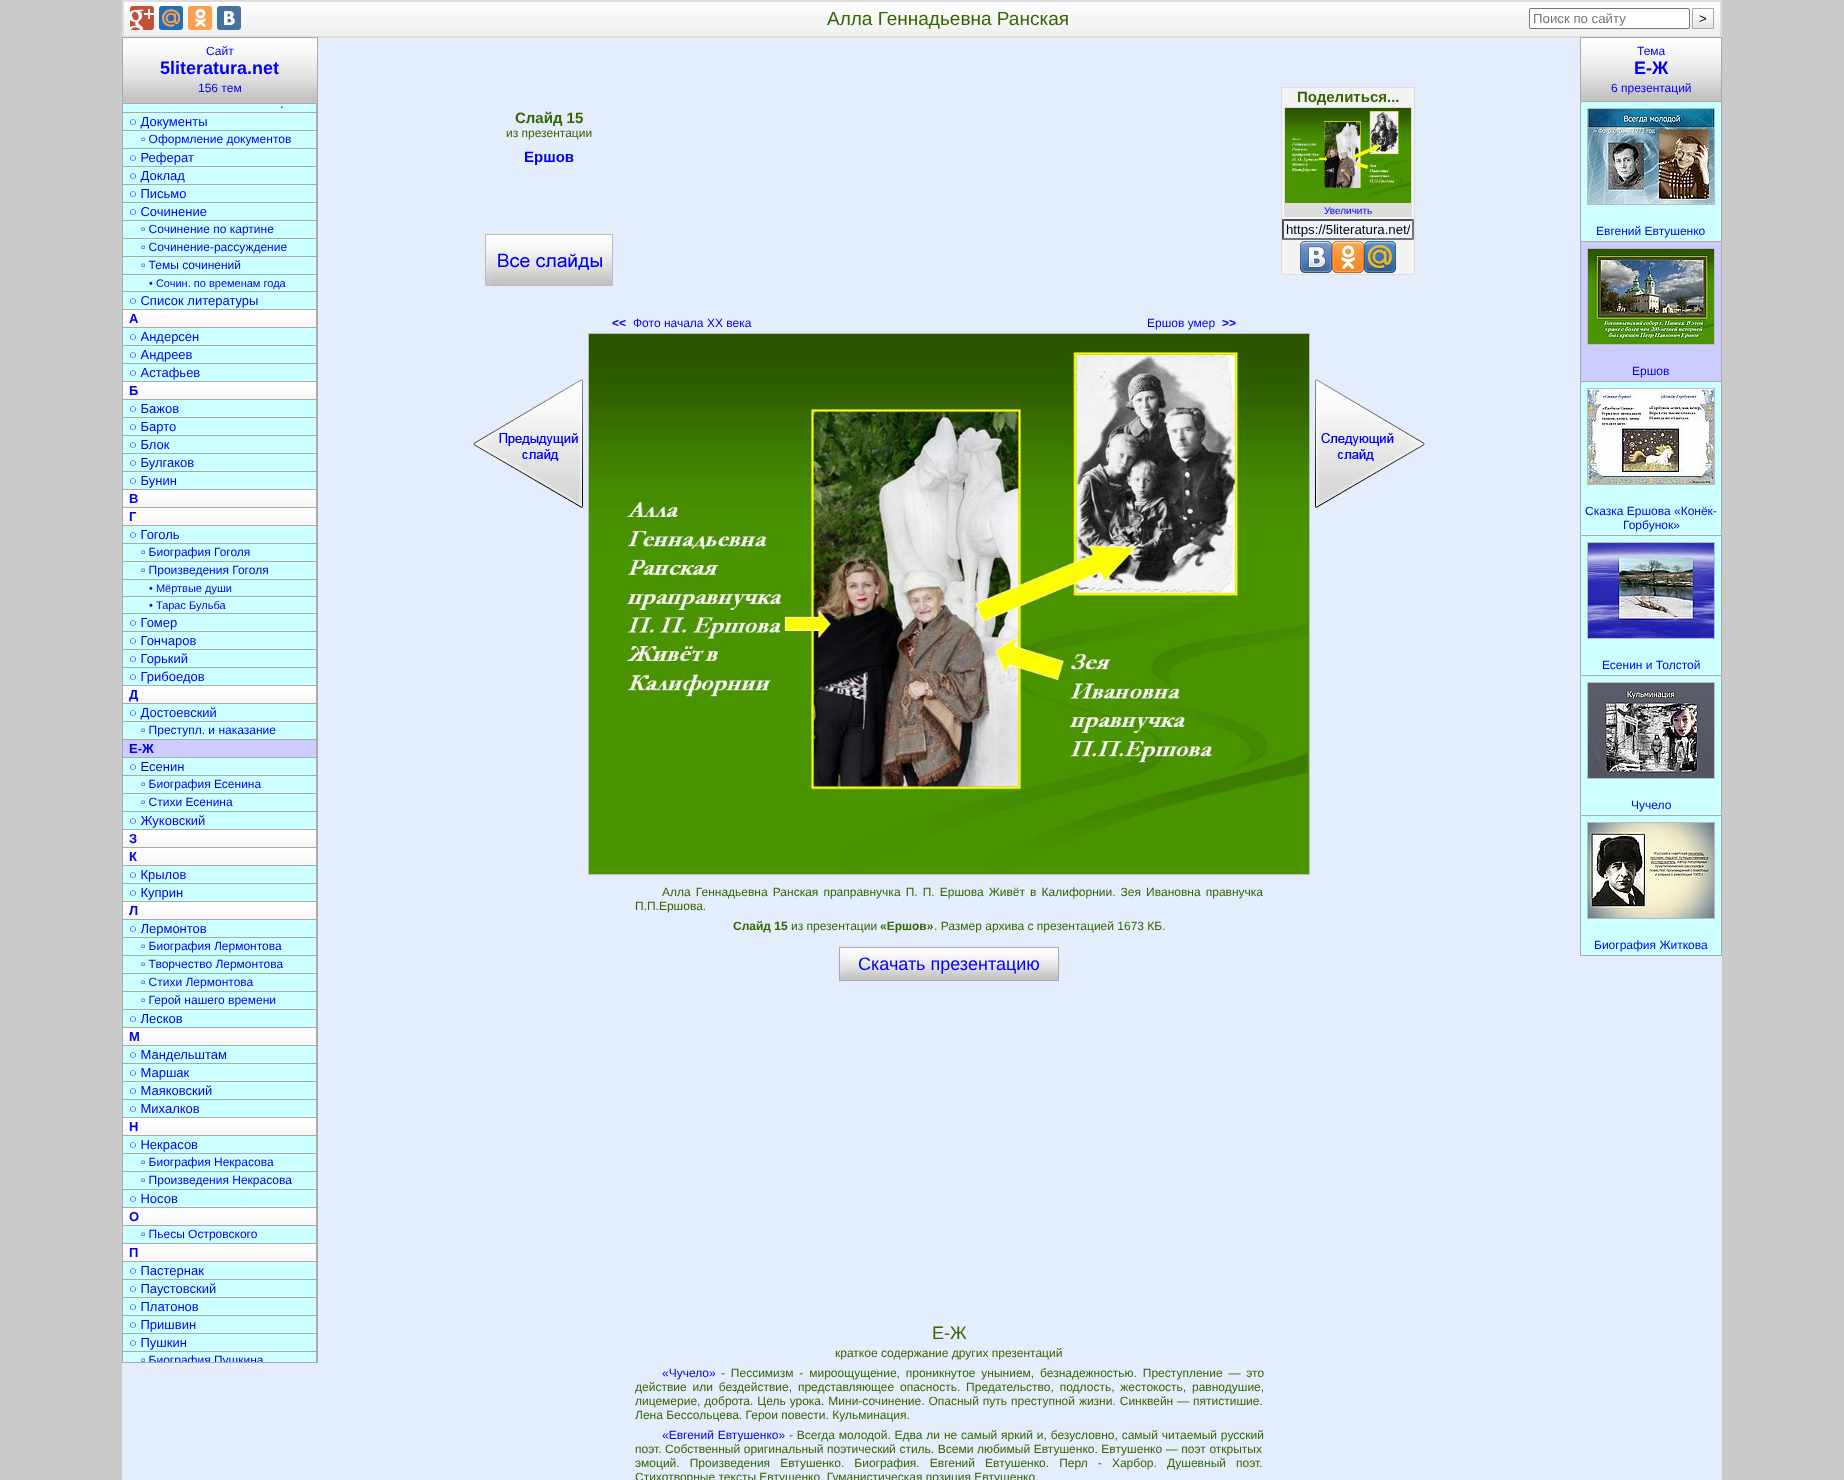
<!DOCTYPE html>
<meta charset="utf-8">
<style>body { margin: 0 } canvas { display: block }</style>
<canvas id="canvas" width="1844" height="1480"></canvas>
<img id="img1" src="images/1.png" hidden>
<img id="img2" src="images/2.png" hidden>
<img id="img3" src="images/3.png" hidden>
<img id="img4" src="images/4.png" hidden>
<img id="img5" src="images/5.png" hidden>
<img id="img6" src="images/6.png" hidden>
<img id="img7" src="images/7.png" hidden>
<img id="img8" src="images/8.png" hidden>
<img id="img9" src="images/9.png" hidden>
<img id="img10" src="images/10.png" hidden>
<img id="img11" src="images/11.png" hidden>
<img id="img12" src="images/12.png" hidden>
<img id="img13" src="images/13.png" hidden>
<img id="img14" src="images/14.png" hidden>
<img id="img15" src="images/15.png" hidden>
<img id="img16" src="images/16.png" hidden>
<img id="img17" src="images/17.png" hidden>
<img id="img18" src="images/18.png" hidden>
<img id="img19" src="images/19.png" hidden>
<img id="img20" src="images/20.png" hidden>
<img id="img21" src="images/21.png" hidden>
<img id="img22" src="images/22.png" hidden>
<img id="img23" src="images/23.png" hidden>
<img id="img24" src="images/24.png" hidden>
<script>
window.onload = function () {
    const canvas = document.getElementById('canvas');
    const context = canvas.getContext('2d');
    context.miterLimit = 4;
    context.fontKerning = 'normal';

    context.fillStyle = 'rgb(202, 202, 202)';
    context.fillRect(0, 0, 1844, 1480);
    context.fillStyle = 'rgb(227, 237, 251)';
    context.fillRect(122, 38, 1600, 1442);
    context.drawImage(document.getElementById('img1'), 124, 2, 1596, 34);
    context.strokeStyle = 'rgb(221, 221, 221)';
    context.lineWidth = 2;
    context.strokeRect(123, 1, 1598, 36);
    context.fillStyle = 'rgb(194, 82, 52)';
    context.beginPath();
    context.roundRect(130, 6, 24, 24, 3);
    context.fill();
    context.drawImage(document.getElementById('img2'), 130, 9, 24, 21);
    context.fillStyle = 'rgb(34, 110, 183)';
    context.beginPath();
    context.roundRect(159, 6, 24, 24, 3);
    context.fill();
    context.drawImage(document.getElementById('img3'), 162, 9, 18, 18);
    context.fillStyle = 'rgb(255, 159, 77)';
    context.beginPath();
    context.roundRect(188, 6, 24, 24, 3);
    context.fill();
    context.drawImage(document.getElementById('img4'), 195, 9, 11, 18);
    context.fillStyle = 'rgb(72, 114, 158)';
    context.beginPath();
    context.roundRect(217, 6, 24, 24, 3);
    context.fill();
    context.drawImage(document.getElementById('img5'), 224, 11, 11, 14);
    context.fillStyle = 'rgb(255, 255, 255)';
    context.beginPath();
    context.roundRect(1529.5, 8.5, 160, 20, 1.5);
    context.fill();
    context.strokeStyle = 'rgb(118, 118, 118)';
    context.lineWidth = 1;
    context.stroke();
    context.drawImage(document.getElementById('img6'), 1693, 19, 20, 9);
    context.strokeStyle = 'rgb(170, 170, 170)';
    context.strokeRect(1692.5, 8.5, 21, 20);
    context.drawImage(document.getElementById('img7'), 123, 38, 194, 65);
    context.strokeRect(122.5, 37.5, 195, 66);
    context.drawImage(document.getElementById('img8'), 486, 235, 126, 50);
    context.strokeStyle = 'rgb(187, 187, 187)';
    context.strokeRect(485.5, 234.5, 127, 51);
    context.fillStyle = 'rgb(243, 243, 243)';
    context.beginPath();
    context.rect(1281.5, 87.5, 133, 187);
    context.fill();
    context.strokeStyle = 'rgb(221, 221, 221)';
    context.stroke();
    context.fillStyle = 'rgb(221, 221, 221)';
    context.fillRect(1284, 107, 128, 110);
    context.drawImage(document.getElementById('img9'), 1285, 108, 126, 95);
    context.fillStyle = 'rgb(238, 244, 253)';
    context.fillRect(1282, 219, 132, 21);
    context.fillStyle = 'rgb(79, 79, 79)';
    context.beginPath();
    context.moveTo(1282, 219);
    context.lineTo(1414, 219);
    context.lineTo(1412, 221);
    context.lineTo(1284, 221);
    context.closePath();
    context.fill();
    context.fillStyle = 'rgb(118, 118, 118)';
    context.beginPath();
    context.moveTo(1414, 219);
    context.lineTo(1414, 240);
    context.lineTo(1412, 238);
    context.lineTo(1412, 221);
    context.closePath();
    context.fill();
    context.beginPath();
    context.moveTo(1414, 240);
    context.lineTo(1282, 240);
    context.lineTo(1284, 238);
    context.lineTo(1412, 238);
    context.closePath();
    context.fill();
    context.fillStyle = 'rgb(79, 79, 79)';
    context.beginPath();
    context.moveTo(1282, 240);
    context.lineTo(1282, 219);
    context.lineTo(1284, 221);
    context.lineTo(1284, 238);
    context.closePath();
    context.fill();
    context.drawImage(document.getElementById('img10'), 1300, 241, 32, 32);
    context.drawImage(document.getElementById('img11'), 1332, 241, 32, 32);
    context.drawImage(document.getElementById('img12'), 1364, 241, 32, 32);
    context.drawImage(document.getElementById('img13'), 473, 379, 110, 129);
    context.drawImage(document.getElementById('img14'), 1315, 379, 110, 129);
    context.strokeStyle = 'rgb(187, 187, 187)';
    context.strokeRect(588.5, 333.5, 721, 541);
    context.drawImage(document.getElementById('img15'), 589, 334, 720, 540);
    context.drawImage(document.getElementById('img16'), 840, 948, 218, 32);
    context.strokeStyle = 'rgb(170, 170, 170)';
    context.strokeRect(839.5, 947.5, 219, 33);
    context.strokeRect(1580.5, 37.5, 141, 918);
    context.drawImage(document.getElementById('img17'), 1581, 38, 140, 63);
    context.fillStyle = 'rgb(204, 255, 255)';
    context.fillRect(1581, 102, 140, 139);
    context.fillStyle = 'rgb(170, 170, 170)';
    context.fillRect(1581, 101, 140, 1);
    context.strokeStyle = 'rgb(187, 187, 187)';
    context.strokeRect(1587.5, 108.5, 127, 96);
    context.drawImage(document.getElementById('img18'), 1588, 109, 126, 95);
    context.fillStyle = 'rgb(204, 204, 255)';
    context.fillRect(1581, 242, 140, 139);
    context.fillStyle = 'rgb(170, 170, 170)';
    context.fillRect(1581, 241, 140, 1);
    context.strokeRect(1587.5, 248.5, 127, 96);
    context.drawImage(document.getElementById('img19'), 1588, 249, 126, 95);
    context.fillStyle = 'rgb(204, 255, 255)';
    context.fillRect(1581, 382, 140, 153);
    context.fillStyle = 'rgb(170, 170, 170)';
    context.fillRect(1581, 381, 140, 1);
    context.strokeRect(1587.5, 388.5, 127, 96);
    context.drawImage(document.getElementById('img20'), 1588, 389, 126, 95);
    context.fillStyle = 'rgb(204, 255, 255)';
    context.fillRect(1581, 536, 140, 139);
    context.fillStyle = 'rgb(170, 170, 170)';
    context.fillRect(1581, 535, 140, 1);
    context.strokeRect(1587.5, 542.5, 127, 96);
    context.drawImage(document.getElementById('img21'), 1588, 543, 126, 95);
    context.fillStyle = 'rgb(204, 255, 255)';
    context.fillRect(1581, 676, 140, 139);
    context.fillStyle = 'rgb(170, 170, 170)';
    context.fillRect(1581, 675, 140, 1);
    context.strokeRect(1587.5, 682.5, 127, 96);
    context.drawImage(document.getElementById('img22'), 1588, 683, 126, 95);
    context.fillStyle = 'rgb(204, 255, 255)';
    context.fillRect(1581, 816, 140, 139);
    context.fillStyle = 'rgb(170, 170, 170)';
    context.fillRect(1581, 815, 140, 1);
    context.strokeRect(1587.5, 822.5, 127, 96);
    context.drawImage(document.getElementById('img23'), 1588, 823, 126, 95);
    context.fillStyle = 'rgb(204, 255, 255)';
    context.fillRect(123, 104, 193, 1258);
    context.strokeStyle = 'rgb(170, 170, 170)';
    context.strokeRect(122.5, 103.5, 195, 1259);
    context.fillStyle = 'rgb(170, 170, 170)';
    context.fillRect(316, 104, 1, 1258);
    context.fillRect(123, 112, 194, 1);
    context.fillRect(123, 130, 194, 1);
    context.fillRect(123, 148, 194, 1);
    context.fillRect(123, 166, 194, 1);
    context.fillRect(123, 184, 194, 1);
    context.fillRect(123, 202, 194, 1);
    context.fillRect(123, 220, 194, 1);
    context.fillRect(123, 238, 194, 1);
    context.fillRect(123, 256, 194, 1);
    context.fillRect(123, 274, 194, 1);
    context.fillRect(123, 291, 194, 1);
    context.fillRect(123, 309, 194, 1);
    context.drawImage(document.getElementById('img24'), 123, 310, 193, 17);
    context.fillRect(123, 327, 194, 1);
    context.fillRect(123, 345, 194, 1);
    context.fillRect(123, 363, 194, 1);
    context.fillRect(123, 381, 194, 1);
    context.drawImage(document.getElementById('img24'), 123, 382, 193, 17);
    context.fillRect(123, 399, 194, 1);
    context.fillRect(123, 417, 194, 1);
    context.fillRect(123, 435, 194, 1);
    context.fillRect(123, 453, 194, 1);
    context.fillRect(123, 471, 194, 1);
    context.fillRect(123, 489, 194, 1);
    context.drawImage(document.getElementById('img24'), 123, 490, 193, 17);
    context.fillRect(123, 507, 194, 1);
    context.drawImage(document.getElementById('img24'), 123, 508, 193, 17);
    context.fillRect(123, 525, 194, 1);
    context.fillRect(123, 543, 194, 1);
    context.fillRect(123, 561, 194, 1);
    context.fillRect(123, 579, 194, 1);
    context.fillRect(123, 596, 194, 1);
    context.fillRect(123, 613, 194, 1);
    context.fillRect(123, 631, 194, 1);
    context.fillRect(123, 649, 194, 1);
    context.fillRect(123, 667, 194, 1);
    context.fillRect(123, 685, 194, 1);
    context.drawImage(document.getElementById('img24'), 123, 686, 193, 17);
    context.fillRect(123, 703, 194, 1);
    context.fillRect(123, 721, 194, 1);
    context.fillRect(123, 739, 194, 1);
    context.fillStyle = 'rgb(204, 204, 255)';
    context.fillRect(123, 740, 193, 17);
    context.fillStyle = 'rgb(170, 170, 170)';
    context.fillRect(123, 757, 194, 1);
    context.fillRect(123, 775, 194, 1);
    context.fillRect(123, 793, 194, 1);
    context.fillRect(123, 811, 194, 1);
    context.fillRect(123, 829, 194, 1);
    context.drawImage(document.getElementById('img24'), 123, 830, 193, 17);
    context.fillRect(123, 847, 194, 1);
    context.drawImage(document.getElementById('img24'), 123, 848, 193, 17);
    context.fillRect(123, 865, 194, 1);
    context.fillRect(123, 883, 194, 1);
    context.fillRect(123, 901, 194, 1);
    context.drawImage(document.getElementById('img24'), 123, 902, 193, 17);
    context.fillRect(123, 919, 194, 1);
    context.fillRect(123, 937, 194, 1);
    context.fillRect(123, 955, 194, 1);
    context.fillRect(123, 973, 194, 1);
    context.fillRect(123, 991, 194, 1);
    context.fillRect(123, 1009, 194, 1);
    context.fillRect(123, 1027, 194, 1);
    context.drawImage(document.getElementById('img24'), 123, 1028, 193, 17);
    context.fillRect(123, 1045, 194, 1);
    context.fillRect(123, 1063, 194, 1);
    context.fillRect(123, 1081, 194, 1);
    context.fillRect(123, 1099, 194, 1);
    context.fillRect(123, 1117, 194, 1);
    context.drawImage(document.getElementById('img24'), 123, 1118, 193, 17);
    context.fillRect(123, 1135, 194, 1);
    context.fillRect(123, 1153, 194, 1);
    context.fillRect(123, 1171, 194, 1);
    context.fillRect(123, 1189, 194, 1);
    context.fillRect(123, 1207, 194, 1);
    context.drawImage(document.getElementById('img24'), 123, 1208, 193, 17);
    context.fillRect(123, 1225, 194, 1);
    context.fillRect(123, 1243, 194, 1);
    context.drawImage(document.getElementById('img24'), 123, 1244, 193, 17);
    context.fillRect(123, 1261, 194, 1);
    context.fillRect(123, 1279, 194, 1);
    context.fillRect(123, 1297, 194, 1);
    context.fillRect(123, 1315, 194, 1);
    context.fillRect(123, 1333, 194, 1);
    context.fillRect(123, 1351, 194, 1);
    context.font = '19px Liberation Sans';
    context.fillStyle = 'rgb(51, 102, 0)';
    context.fillText('Алла Геннадьевна Ранская', 827, 25);
    context.font = '13.25px Liberation Sans';
    context.fillStyle = 'rgb(117, 117, 117)';
    context.fillText('Поиск по сайту', 1533, 23);
    context.fillStyle = 'rgb(0, 0, 0)';
    context.fillText('>', 1699, 23);
    context.font = '12px Liberation Sans';
    context.fillStyle = 'rgb(0, 0, 238)';
    context.fillText('Сайт', 206, 55);
    context.font = 'bold 18px Liberation Sans';
    context.fillText('5literatura.net', 160, 74);
    context.font = '12px Liberation Sans';
    context.fillText('156 тем', 198, 92);
    context.font = 'bold 15px Liberation Sans';
    context.fillStyle = 'rgb(51, 102, 0)';
    context.fillText('Cлайд 15', 515, 123);
    context.font = '12px Liberation Sans';
    context.fillText('из презентации', 506, 137);
    context.font = 'bold 15px Liberation Sans';
    context.fillStyle = 'rgb(0, 0, 238)';
    context.fillText('Ершов', 524, 162);
    context.fillStyle = 'rgb(51, 102, 0)';
    context.fillText('Поделиться...', 1297, 102);
    context.font = '10px Liberation Sans';
    context.fillStyle = 'rgb(0, 0, 238)';
    context.fillText('Увеличить', 1324, 214);
    context.save();
    context.beginPath();
    context.rect(1286, 222, 124, 15);
    context.clip();
    context.font = '13.25px Liberation Sans';
    context.fillStyle = 'rgb(0, 0, 0)';
    context.fillText('https://5literatura.net/', 1286, 234);
    context.restore();
    context.font = 'bold 12px Liberation Sans';
    context.fillText('<<', 612, 327);
    context.font = '12px Liberation Sans';
    context.fillText('Фото начала ХХ века', 633, 327);
    context.fillText('Ершов умер', 1147, 327);
    context.font = 'bold 12px Liberation Sans';
    context.fillText('>>', 1222, 327);
    context.wordSpacing = '1.75px';
    context.font = '12px Liberation Sans';
    context.fillStyle = 'rgb(51, 102, 0)';
    context.fillText('Алла Геннадьевна Ранская праправнучка П. П. Ершова Живёт в Калифорнии. Зея Ивановна правнучка', 662, 896);
    context.wordSpacing = '0px';
    context.fillText('П.П.Ершова.', 635, 910);
    context.font = 'bold 12px Liberation Sans';
    context.fillText('Слайд 15', 733, 930);
    context.font = '12px Liberation Sans';
    context.fillText('из презентации', 791, 930);
    context.font = 'bold 12px Liberation Sans';
    context.fillText('«Ершов»', 880, 930);
    context.font = '12px Liberation Sans';
    context.fillText('. Размер архива с презентацией 1673 КБ.', 934, 930);
    context.font = '18px Liberation Sans';
    context.fillStyle = 'rgb(0, 0, 255)';
    context.fillText('Скачать презентацию', 858, 970);
    context.fillStyle = 'rgb(51, 102, 0)';
    context.fillText('Е-Ж', 932, 1339);
    context.font = '12px Liberation Sans';
    context.fillText('краткое содержание других презентаций', 835, 1357);
    context.fillStyle = 'rgb(0, 0, 238)';
    context.fillText('«Чучело»', 662, 1377);
    context.wordSpacing = '2.5px';
    context.fillStyle = 'rgb(51, 102, 0)';
    context.fillText('- Пессимизм - мироощущение, проникнутое унынием, безнадежностью. Преступление — это', 721, 1377);
    context.fillText('действие или бездействие, представляющее опасность. Предательство, подлость, жестокость, равнодушие,', 635, 1391);
    context.wordSpacing = '0.6px';
    context.fillText('лицемерие, доброта. Цель урока. Мини-сочинение. Опасный путь преступной жизни. Синквейн — пятистишие.', 635, 1405);
    context.wordSpacing = '0px';
    context.fillText('Лена Бессольцева. Герои повести. Кульминация.', 635, 1419);
    context.wordSpacing = '0.5px';
    context.fillStyle = 'rgb(0, 0, 238)';
    context.fillText('«Евгений Евтушенко»', 662, 1439);
    context.fillStyle = 'rgb(51, 102, 0)';
    context.fillText('- Всегда молодой. Едва ли не самый яркий и, безусловно, самый читаемый русский', 789, 1439);
    context.wordSpacing = '0.25px';
    context.fillText('поэт. Собственный оригинальный поэтический стиль. Всеми любимый Евтушенко. Евтушенко — поэт открытых', 635, 1453);
    context.wordSpacing = '6.75px';
    context.fillText('эмоций. Произведения Евтушенко. Биография. Евгений Евтушенко. Перл - Харбор. Душевный поэт.', 635, 1467);
    context.wordSpacing = '0px';
    context.fillText('Стихотворные тексты Евтушенко. Гуманистическая позиция Евтушенко.', 635, 1481);
    context.fillStyle = 'rgb(0, 0, 238)';
    context.fillText('Тема', 1637, 55);
    context.font = 'bold 18px Liberation Sans';
    context.fillText('Е-Ж', 1634, 74);
    context.font = '12px Liberation Sans';
    context.fillText('6 презентаций', 1611, 92);
    context.fillText('Евгений Евтушенко', 1596, 235);
    context.fillText('Ершов', 1632, 375);
    context.fillText('Сказка Ершова «Конёк-', 1585, 515);
    context.fillText('Горбунок»', 1623, 529);
    context.fillText('Есенин и Толстой', 1602, 669);
    context.fillText('Чучело', 1631, 809);
    context.fillText('Биография Житкова', 1594, 949);
    context.font = '13px Liberation Sans';
    context.fillText('.', 280, 108);
    context.fillText('○ Документы', 129, 126);
    context.font = '12px Liberation Sans';
    context.fillText('▫ Оформление документов', 141, 143);
    context.font = '13px Liberation Sans';
    context.fillText('○ Реферат', 129, 162);
    context.fillText('○ Доклад', 129, 180);
    context.fillText('○ Письмо', 129, 198);
    context.fillText('○ Сочинение', 129, 216);
    context.font = '12px Liberation Sans';
    context.fillText('▫ Сочинение по картине', 141, 233);
    context.fillText('▫ Сочинение-рассуждение', 141, 251);
    context.fillText('▫ Темы сочинений', 141, 269);
    context.font = '11px Liberation Sans';
    context.fillText('• Сочин. по временам года', 149, 287);
    context.font = '13px Liberation Sans';
    context.fillText('○ Список литературы', 129, 305);
    context.font = 'bold 13px Liberation Sans';
    context.fillText('А', 129, 323);
    context.font = '13px Liberation Sans';
    context.fillText('○ Андерсен', 129, 341);
    context.fillText('○ Андреев', 129, 359);
    context.fillText('○ Астафьев', 129, 377);
    context.font = 'bold 13px Liberation Sans';
    context.fillText('Б', 129, 395);
    context.font = '13px Liberation Sans';
    context.fillText('○ Бажов', 129, 413);
    context.fillText('○ Барто', 129, 431);
    context.fillText('○ Блок', 129, 449);
    context.fillText('○ Булгаков', 129, 467);
    context.fillText('○ Бунин', 129, 485);
    context.font = 'bold 13px Liberation Sans';
    context.fillText('В', 129, 503);
    context.fillText('Г', 129, 521);
    context.font = '13px Liberation Sans';
    context.fillText('○ Гоголь', 129, 539);
    context.font = '12px Liberation Sans';
    context.fillText('▫ Биография Гоголя', 141, 556);
    context.fillText('▫ Произведения Гоголя', 141, 574);
    context.font = '11px Liberation Sans';
    context.fillText('• Мёртвые души', 149, 592);
    context.fillText('• Тарас Бульба', 149, 609);
    context.font = '13px Liberation Sans';
    context.fillText('○ Гомер', 129, 627);
    context.fillText('○ Гончаров', 129, 645);
    context.fillText('○ Горький', 129, 663);
    context.fillText('○ Грибоедов', 129, 681);
    context.font = 'bold 13px Liberation Sans';
    context.fillText('Д', 129, 699);
    context.font = '13px Liberation Sans';
    context.fillText('○ Достоевский', 129, 717);
    context.font = '12px Liberation Sans';
    context.fillText('▫ Преступл. и наказание', 141, 734);
    context.font = 'bold 13px Liberation Sans';
    context.fillText('Е-Ж', 129, 753);
    context.font = '13px Liberation Sans';
    context.fillText('○ Есенин', 129, 771);
    context.font = '12px Liberation Sans';
    context.fillText('▫ Биография Есенина', 141, 788);
    context.fillText('▫ Стихи Есенина', 141, 806);
    context.font = '13px Liberation Sans';
    context.fillText('○ Жуковский', 129, 825);
    context.font = 'bold 13px Liberation Sans';
    context.fillText('З', 129, 843);
    context.fillText('К', 129, 861);
    context.font = '13px Liberation Sans';
    context.fillText('○ Крылов', 129, 879);
    context.fillText('○ Куприн', 129, 897);
    context.font = 'bold 13px Liberation Sans';
    context.fillText('Л', 129, 915);
    context.font = '13px Liberation Sans';
    context.fillText('○ Лермонтов', 129, 933);
    context.font = '12px Liberation Sans';
    context.fillText('▫ Биография Лермонтова', 141, 950);
    context.fillText('▫ Творчество Лермонтова', 141, 968);
    context.fillText('▫ Стихи Лермонтова', 141, 986);
    context.fillText('▫ Герой нашего времени', 141, 1004);
    context.font = '13px Liberation Sans';
    context.fillText('○ Лесков', 129, 1023);
    context.font = 'bold 13px Liberation Sans';
    context.fillText('М', 129, 1041);
    context.font = '13px Liberation Sans';
    context.fillText('○ Мандельштам', 129, 1059);
    context.fillText('○ Маршак', 129, 1077);
    context.fillText('○ Маяковский', 129, 1095);
    context.fillText('○ Михалков', 129, 1113);
    context.font = 'bold 13px Liberation Sans';
    context.fillText('Н', 129, 1131);
    context.font = '13px Liberation Sans';
    context.fillText('○ Некрасов', 129, 1149);
    context.font = '12px Liberation Sans';
    context.fillText('▫ Биография Некрасова', 141, 1166);
    context.fillText('▫ Произведения Некрасова', 141, 1184);
    context.font = '13px Liberation Sans';
    context.fillText('○ Носов', 129, 1203);
    context.font = 'bold 13px Liberation Sans';
    context.fillText('О', 129, 1221);
    context.font = '12px Liberation Sans';
    context.fillText('▫ Пьесы Островского', 141, 1238);
    context.font = 'bold 13px Liberation Sans';
    context.fillText('П', 129, 1257);
    context.font = '13px Liberation Sans';
    context.fillText('○ Пастернак', 129, 1275);
    context.fillText('○ Паустовский', 129, 1293);
    context.fillText('○ Платонов', 129, 1311);
    context.fillText('○ Пришвин', 129, 1329);
    context.fillText('○ Пушкин', 129, 1347);
    context.save();
    context.beginPath();
    context.rect(123, 104, 194, 1258);
    context.clip();
    context.font = '12px Liberation Sans';
    context.fillText('▫ Биография Пушкина', 141, 1364);
    context.restore();
};
</script>
